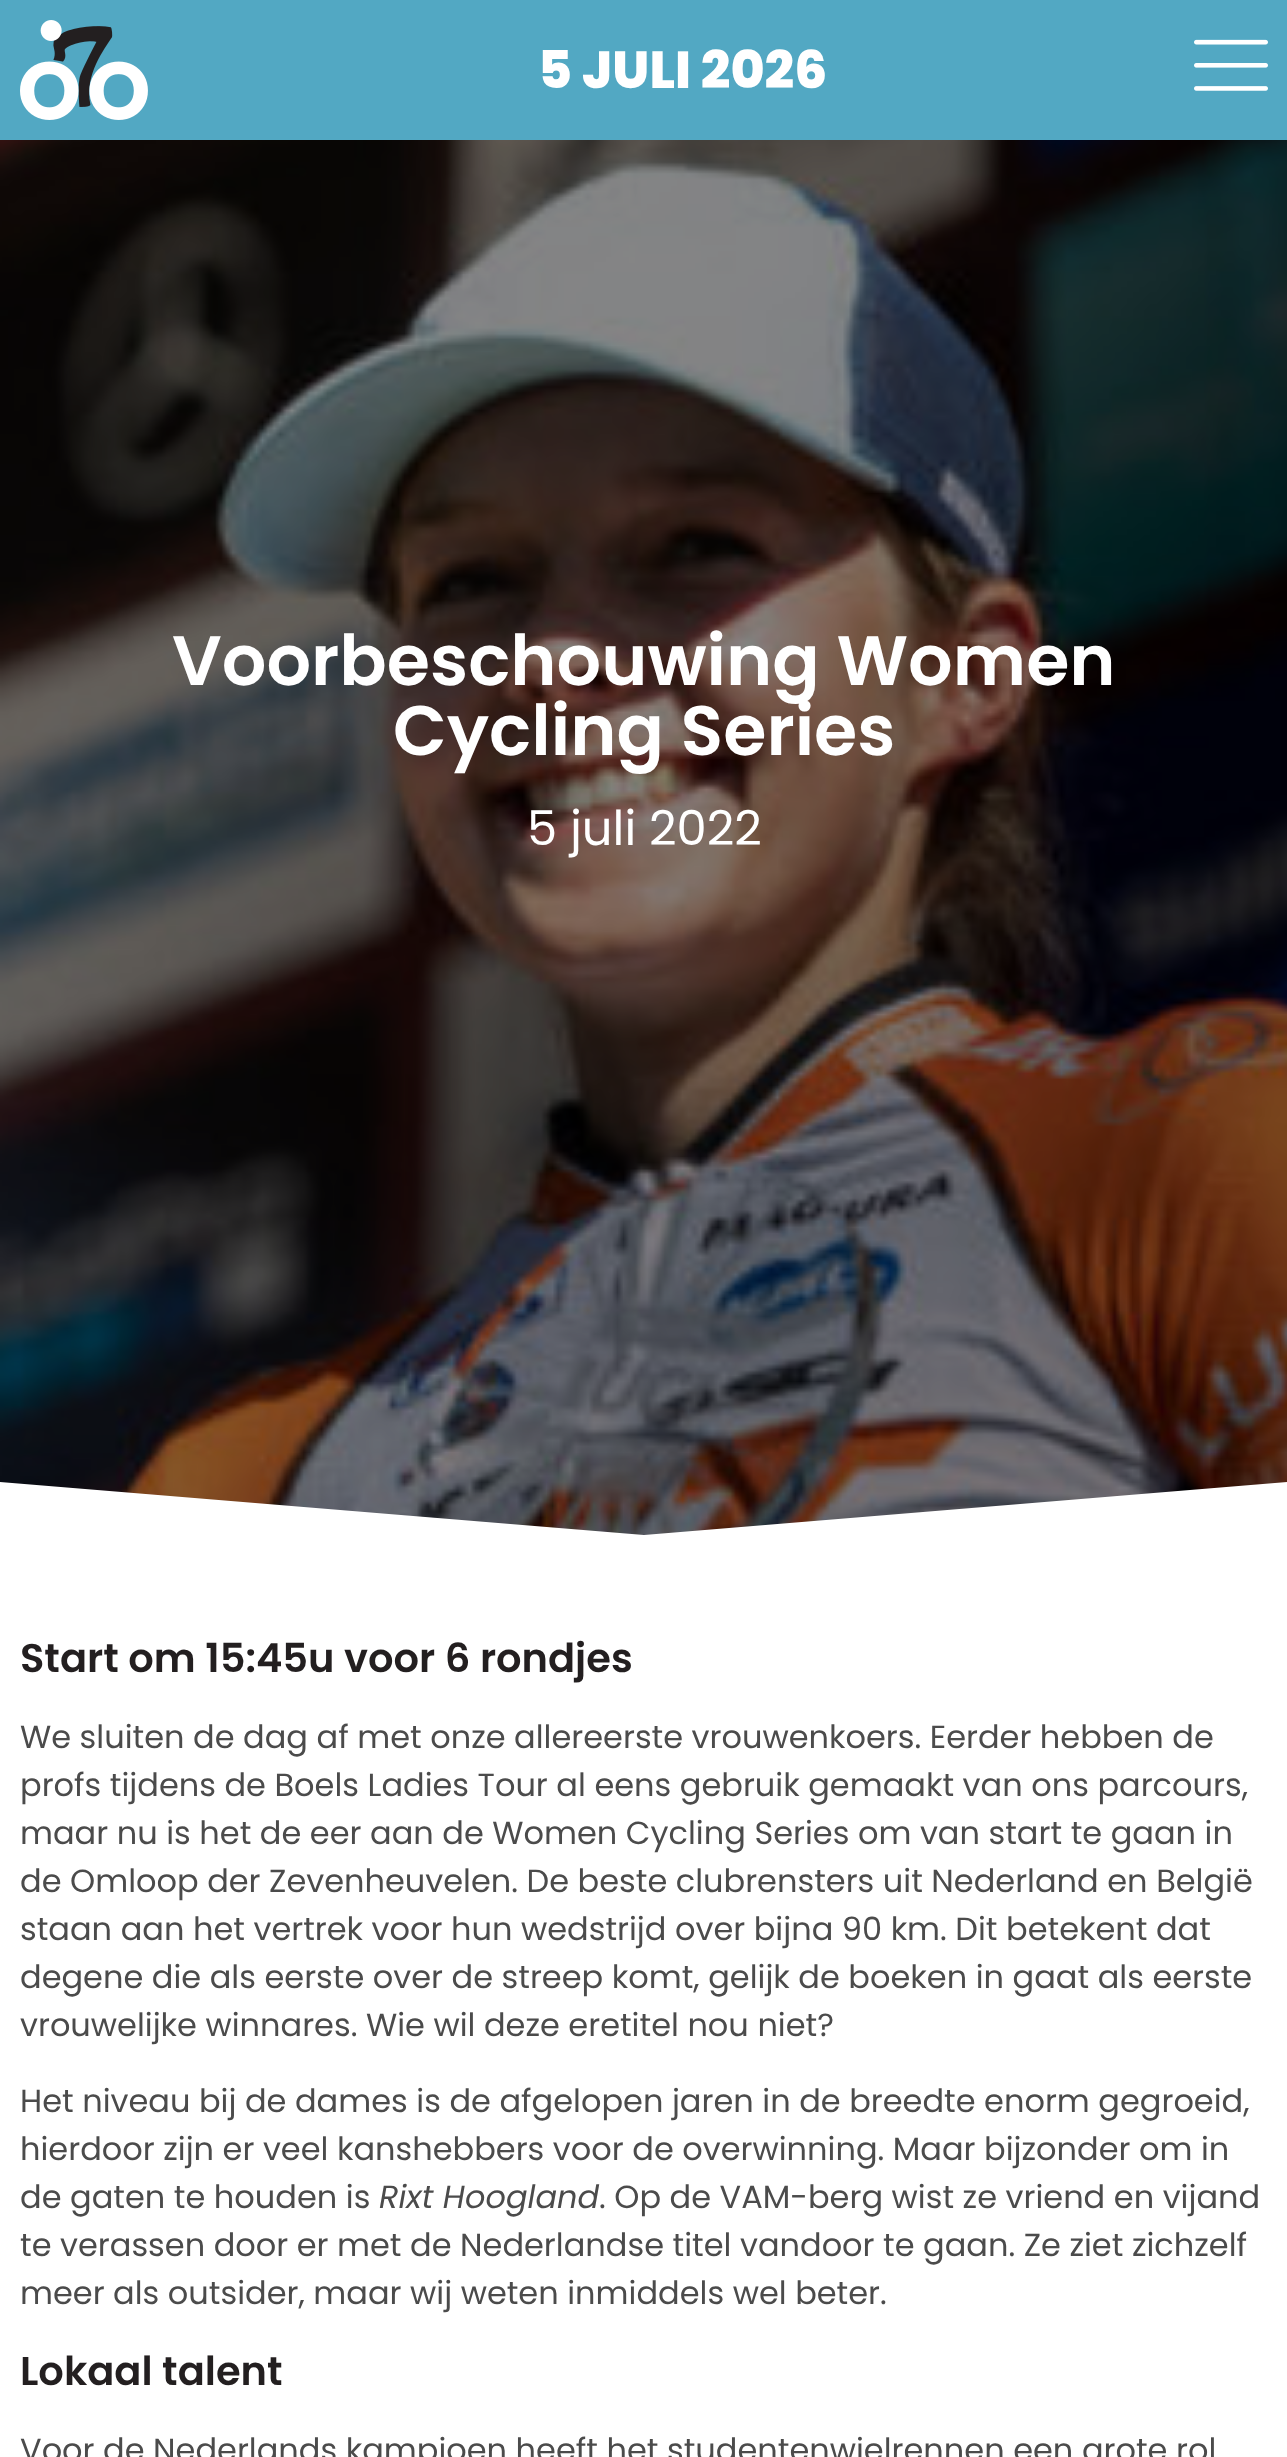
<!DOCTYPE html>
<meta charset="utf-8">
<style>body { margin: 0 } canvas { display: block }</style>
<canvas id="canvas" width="1287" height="2457"></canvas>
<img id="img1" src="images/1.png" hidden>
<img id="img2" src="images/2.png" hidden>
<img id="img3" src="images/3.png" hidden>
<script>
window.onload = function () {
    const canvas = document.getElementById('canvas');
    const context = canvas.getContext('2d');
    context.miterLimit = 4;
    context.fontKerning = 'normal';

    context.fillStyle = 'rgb(255, 255, 255)';
    context.fillRect(0, 0, 1287, 2457);
    context.fillStyle = 'rgb(82, 168, 195)';
    context.fillRect(0, 0, 1287, 140);
    context.drawImage(document.getElementById('img1'), 20, 20, 128, 100);
    context.drawImage(document.getElementById('img2'), 1194, 39, 74, 52);
    context.drawImage(document.getElementById('img3'), 0, 140, 1287, 1395);
    context.fillStyle = 'rgb(255, 255, 255)';
    context.beginPath();
    context.moveTo(644, 1535);
    context.lineTo(-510, 1440);
    context.lineTo(-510, 1540);
    context.lineTo(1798, 1540);
    context.lineTo(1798, 1440);
    context.closePath();
    context.fill();
    context.font = '800 52px Poppins';
    context.fillText('5 JULI 2026', 538, 88);
    context.font = '600 70px Poppins';
    context.fillText('Voorbeschouwing Women', 172, 685);
    context.fillText('Cycling Series', 393, 755);
    context.font = '48px Poppins';
    context.fillText('5 juli 2022', 527, 845);
    context.font = '600 40px Poppins';
    context.fillStyle = 'rgb(35, 31, 32)';
    context.fillText('Start om 15:45u voor 6 rondjes', 20, 1672);
    context.font = '32px Poppins';
    context.fillStyle = 'rgb(75, 75, 75)';
    context.fillText('We sluiten de dag af met onze allereerste vrouwenkoers. Eerder hebben de', 20, 1748);
    context.fillText('profs tijdens de Boels Ladies Tour al eens gebruik gemaakt van ons parcours,', 20, 1796);
    context.fillText('maar nu is het de eer aan de Women Cycling Series om van start te gaan in', 20, 1844);
    context.fillText('de Omloop der Zevenheuvelen. De beste clubrensters uit Nederland en België', 20, 1892);
    context.fillText('staan aan het vertrek voor hun wedstrijd over bijna 90 km. Dit betekent dat', 20, 1940);
    context.fillText('degene die als eerste over de streep komt, gelijk de boeken in gaat als eerste', 20, 1988);
    context.fillText('vrouwelijke winnares. Wie wil deze eretitel nou niet?', 20, 2036);
    context.fillText('Het niveau bij de dames is de afgelopen jaren in de breedte enorm gegroeid,', 20, 2112);
    context.fillText('hierdoor zijn er veel kanshebbers voor de overwinning. Maar bijzonder om in', 20, 2160);
    context.fillText('de gaten te houden is', 20, 2208);
    context.font = 'italic 32px Poppins';
    context.fillText('Rixt Hoogland', 379, 2208);
    context.font = '32px Poppins';
    context.fillText('. Op de VAM-berg wist ze vriend en vijand', 599, 2208);
    context.fillText('te verassen door er met de Nederlandse titel vandoor te gaan. Ze ziet zichzelf', 20, 2256);
    context.fillText('meer als outsider, maar wij weten inmiddels wel beter.', 20, 2304);
    context.font = '600 40px Poppins';
    context.fillStyle = 'rgb(35, 31, 32)';
    context.fillText('Lokaal talent', 20, 2385);
    context.font = '32px Poppins';
    context.fillStyle = 'rgb(75, 75, 75)';
    context.fillText('Voor de Nederlands kampioen heeft het studentenwielrennen een grote rol', 20, 2461);
};
</script>
